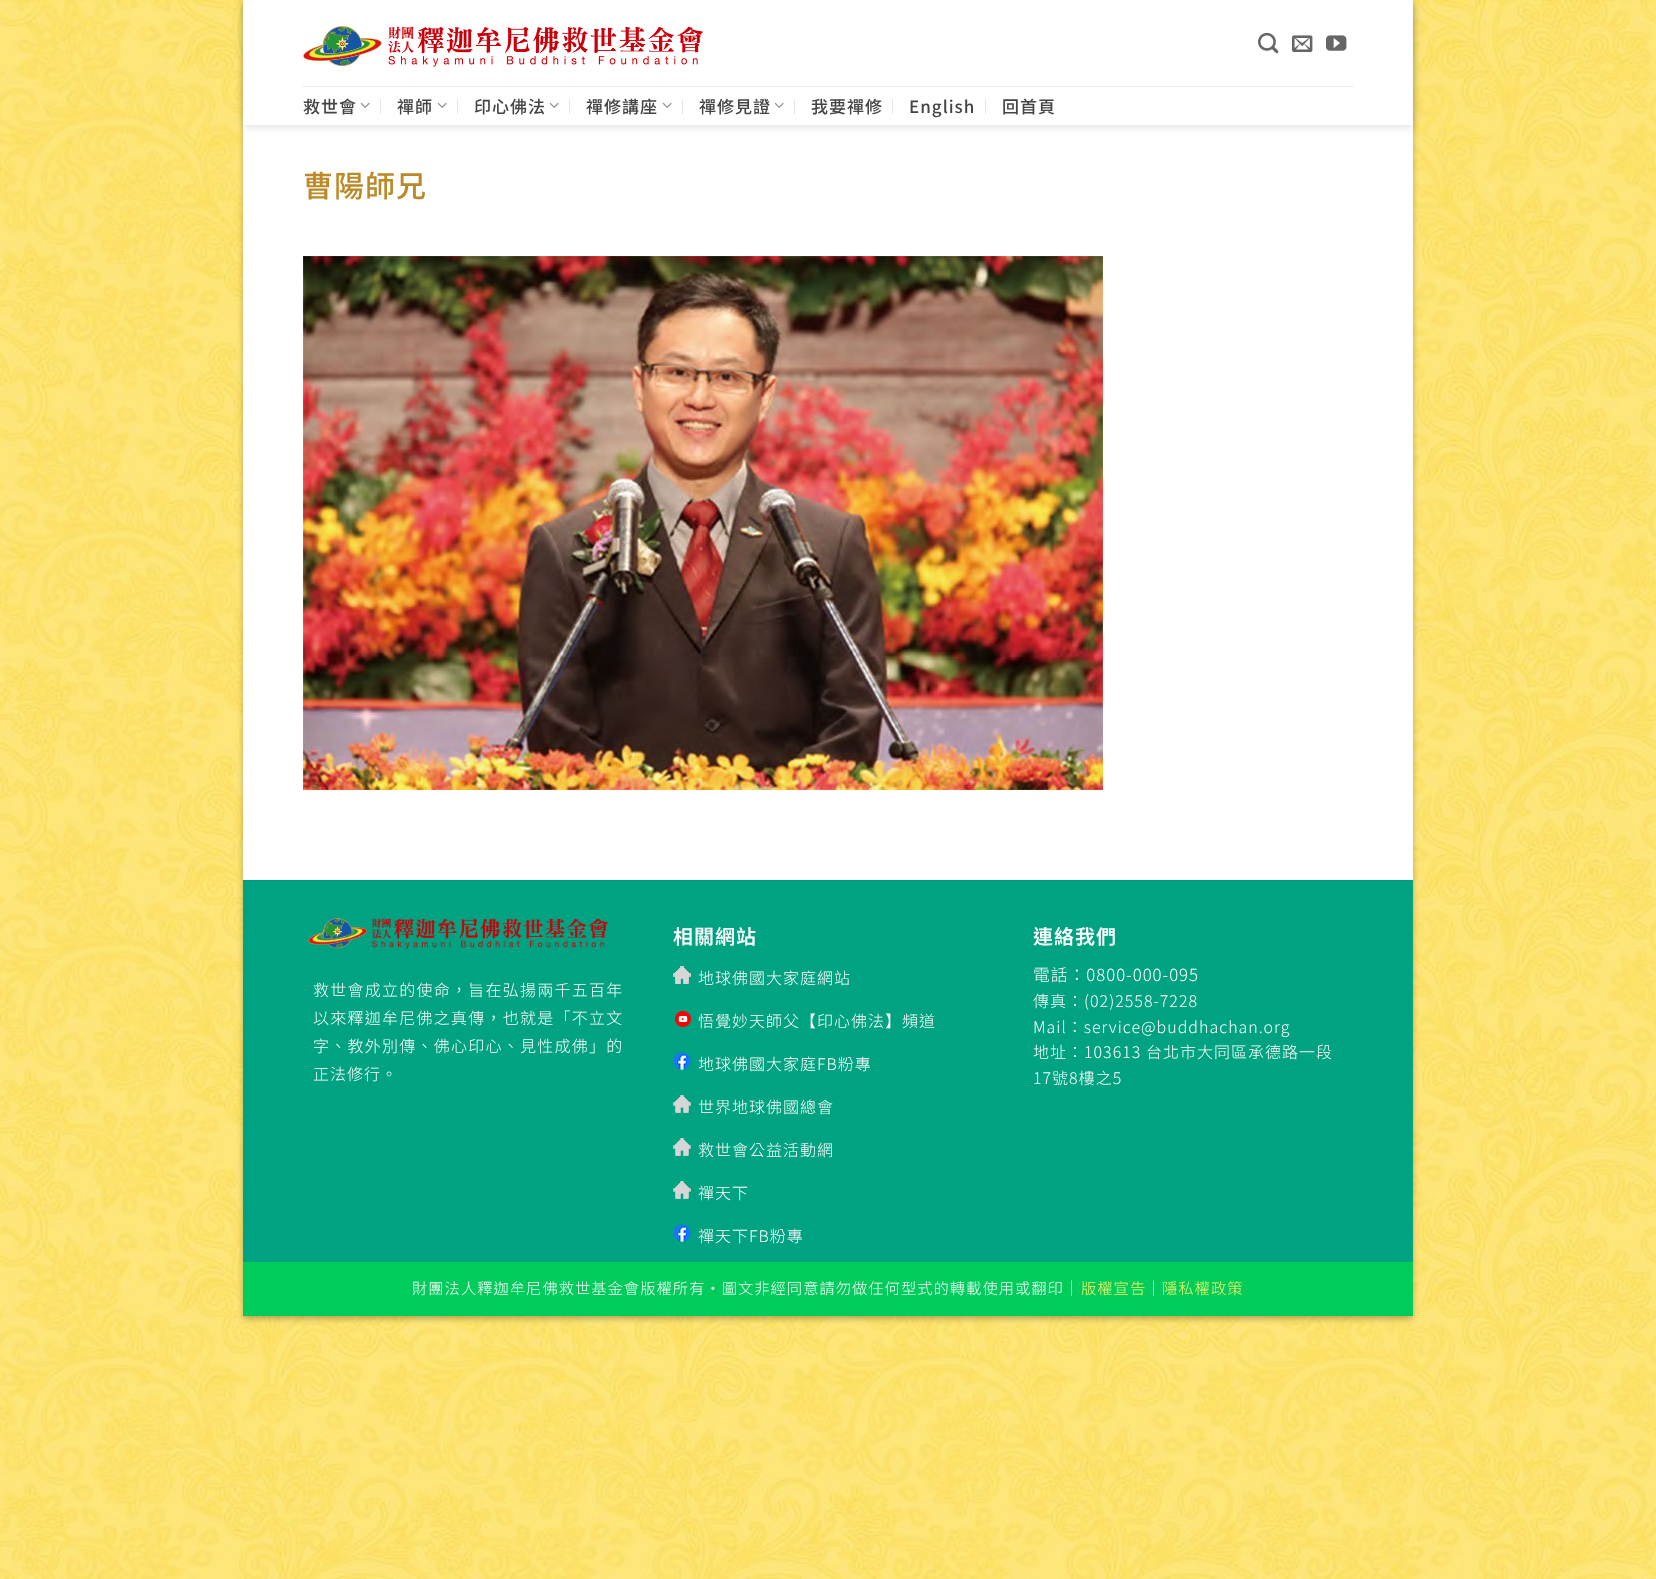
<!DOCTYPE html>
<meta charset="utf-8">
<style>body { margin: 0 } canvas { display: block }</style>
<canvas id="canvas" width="1656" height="1579"></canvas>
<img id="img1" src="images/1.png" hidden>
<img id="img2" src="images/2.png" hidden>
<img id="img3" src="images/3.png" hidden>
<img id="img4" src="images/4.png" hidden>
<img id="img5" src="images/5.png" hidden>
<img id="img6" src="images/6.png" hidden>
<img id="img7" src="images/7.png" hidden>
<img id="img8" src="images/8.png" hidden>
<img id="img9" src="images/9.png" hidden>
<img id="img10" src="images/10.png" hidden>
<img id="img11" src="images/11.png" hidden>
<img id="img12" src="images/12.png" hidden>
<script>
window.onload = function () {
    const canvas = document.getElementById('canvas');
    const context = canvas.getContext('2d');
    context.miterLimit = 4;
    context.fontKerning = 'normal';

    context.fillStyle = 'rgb(255, 255, 255)';
    context.fillRect(0, 0, 1656, 1579);
    context.drawImage(document.getElementById('img1'), 0, 0, 1656, 1579);
    context.fillStyle = 'rgba(0, 0, 0, 0.23)';
    context.filter = 'blur(3px)';
    context.beginPath();
    context.rect(243, 3, 1170, 1316);
    context.fill();
    context.filter = 'none';
    context.fillStyle = 'rgba(0, 0, 0, 0.16)';
    context.filter = 'blur(3px)';
    context.beginPath();
    context.rect(247, 7, 1162, 1308);
    context.fill();
    context.filter = 'none';
    context.fillStyle = 'rgb(255, 255, 255)';
    context.fillRect(243, 0, 1170, 880);
    context.save();
    context.beginPath();
    context.moveTo(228, 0);
    context.lineTo(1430, 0);
    context.lineTo(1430, 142);
    context.lineTo(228, 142);
    context.closePath();
    context.moveTo(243, 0);
    context.lineTo(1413, 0);
    context.lineTo(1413, 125);
    context.lineTo(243, 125);
    context.closePath();
    context.clip('evenodd');
    context.fillStyle = 'rgba(0, 0, 0, 0.15)';
    context.filter = 'blur(5px)';
    context.beginPath();
    context.rect(244, 1, 1170, 125);
    context.fill();
    context.filter = 'none';
    context.restore();
    context.drawImage(document.getElementById('img2'), 303, 26, 400, 41);
    context.drawImage(document.getElementById('img3'), 1258, 32, 21, 22);
    context.drawImage(document.getElementById('img4'), 1292, 35, 21, 17);
    context.drawImage(document.getElementById('img5'), 1326, 35, 21, 16);
    context.fillStyle = 'rgb(235, 235, 235)';
    context.fillRect(303, 86, 1050, 1);
    context.drawImage(document.getElementById('img6'), 360, 102, 10, 6);
    context.fillStyle = 'rgb(230, 230, 230)';
    context.fillRect(380, 99, 1, 15);
    context.drawImage(document.getElementById('img6'), 437, 102, 10, 6);
    context.fillRect(457, 99, 1, 15);
    context.drawImage(document.getElementById('img6'), 549, 102, 10, 6);
    context.fillRect(569, 99, 1, 15);
    context.drawImage(document.getElementById('img6'), 662, 102, 10, 6);
    context.fillRect(682, 99, 1, 15);
    context.drawImage(document.getElementById('img6'), 774, 102, 10, 6);
    context.fillRect(794, 99, 1, 15);
    context.fillRect(892, 99, 1, 15);
    context.fillRect(985, 99, 1, 15);
    context.drawImage(document.getElementById('img7'), 303, 256, 800, 534);
    context.fillStyle = 'rgb(0, 163, 129)';
    context.fillRect(243, 881, 1170, 381);
    context.fillStyle = 'rgb(0, 155, 123)';
    context.fillRect(243, 880, 1170, 1);
    context.drawImage(document.getElementById('img8'), 308, 918, 300, 31);
    context.drawImage(document.getElementById('img9'), 673, 966, 18, 18);
    context.drawImage(document.getElementById('img10'), 673, 966, 18, 18);
    context.drawImage(document.getElementById('img11'), 675, 1011, 16, 16);
    context.drawImage(document.getElementById('img12'), 673, 1052, 18, 18);
    context.drawImage(document.getElementById('img9'), 673, 1095, 18, 18);
    context.drawImage(document.getElementById('img9'), 673, 1138, 18, 18);
    context.drawImage(document.getElementById('img9'), 673, 1181, 18, 18);
    context.drawImage(document.getElementById('img12'), 673, 1224, 18, 18);
    context.fillStyle = 'rgb(0, 204, 91)';
    context.fillRect(243, 1262, 1170, 54);
    context.letterSpacing = '1px';
    context.font = '500 17px Noto Sans TC';
    context.fillStyle = 'rgb(68, 68, 68)';
    context.fillText('救世會', 303, 113);
    context.fillText('禪師', 397, 113);
    context.fillText('印心佛法', 474, 113);
    context.fillText('禪修講座', 586, 113);
    context.fillText('禪修見證', 699, 113);
    context.fillText('我要禪修', 811, 113);
    context.fillText('English', 909, 113);
    context.fillText('回首頁', 1002, 113);
    context.font = '500 30px Noto Sans TC';
    context.fillStyle = 'rgb(188, 137, 40)';
    context.fillText('曹陽師兄', 303, 197);
    context.letterSpacing = '1.25px';
    context.font = '300 16px Noto Sans TC';
    context.fillStyle = 'rgb(255, 255, 255)';
    context.fillText('救世會成立的使命，旨在弘揚兩千五百年', 313, 996);
    context.fillText('以來釋迦牟尼佛之真傳，也就是「不立文', 313, 1024);
    context.fillText('字、教外別傳、佛心印心、見性成佛」的', 313, 1052);
    context.letterSpacing = '1px';
    context.fillText('正法修行。', 313, 1080);
    context.font = '600 20px Noto Sans TC';
    context.fillText('相關網站', 673, 944);
    context.font = '300 16px Noto Sans TC';
    context.fillText('地球佛國大家庭網站', 698, 984);
    context.fillText('悟覺妙天師父【印心佛法】頻道', 698, 1027);
    context.fillText('地球佛國大家庭FB粉專', 698, 1070);
    context.fillText('世界地球佛國總會', 698, 1113);
    context.fillText('救世會公益活動網', 698, 1156);
    context.fillText('禪天下', 698, 1199);
    context.fillText('禪天下FB粉專', 698, 1242);
    context.font = '600 20px Noto Sans TC';
    context.fillText('連絡我們', 1033, 944);
    context.font = '300 16.75px Noto Sans TC';
    context.fillText('電話：0800-000-095', 1033, 981);
    context.font = '300 16px Noto Sans TC';
    context.fillText('傳真：(02)2558-7228', 1033, 1007);
    context.fillText('Mail：service@buddhachan.org', 1033, 1033);
    context.fillText('地址：103613 台北市大同區承德路一段', 1033, 1058);
    context.fillText('17號8樓之5', 1033, 1084);
    context.font = '300 15.3px Noto Sans TC';
    context.fillText('財團法人釋迦牟尼佛救世基金會版權所有‧圖文非經同意請勿做任何型式的轉載使用或翻印｜', 412, 1294);
    context.fillStyle = 'rgb(255, 247, 101)';
    context.fillText('版權宣告', 1081, 1294);
    context.fillStyle = 'rgb(255, 255, 255)';
    context.fillText('｜', 1146, 1294);
    context.fillStyle = 'rgb(255, 247, 101)';
    context.fillText('隱私權政策', 1162, 1294);
};
</script>
